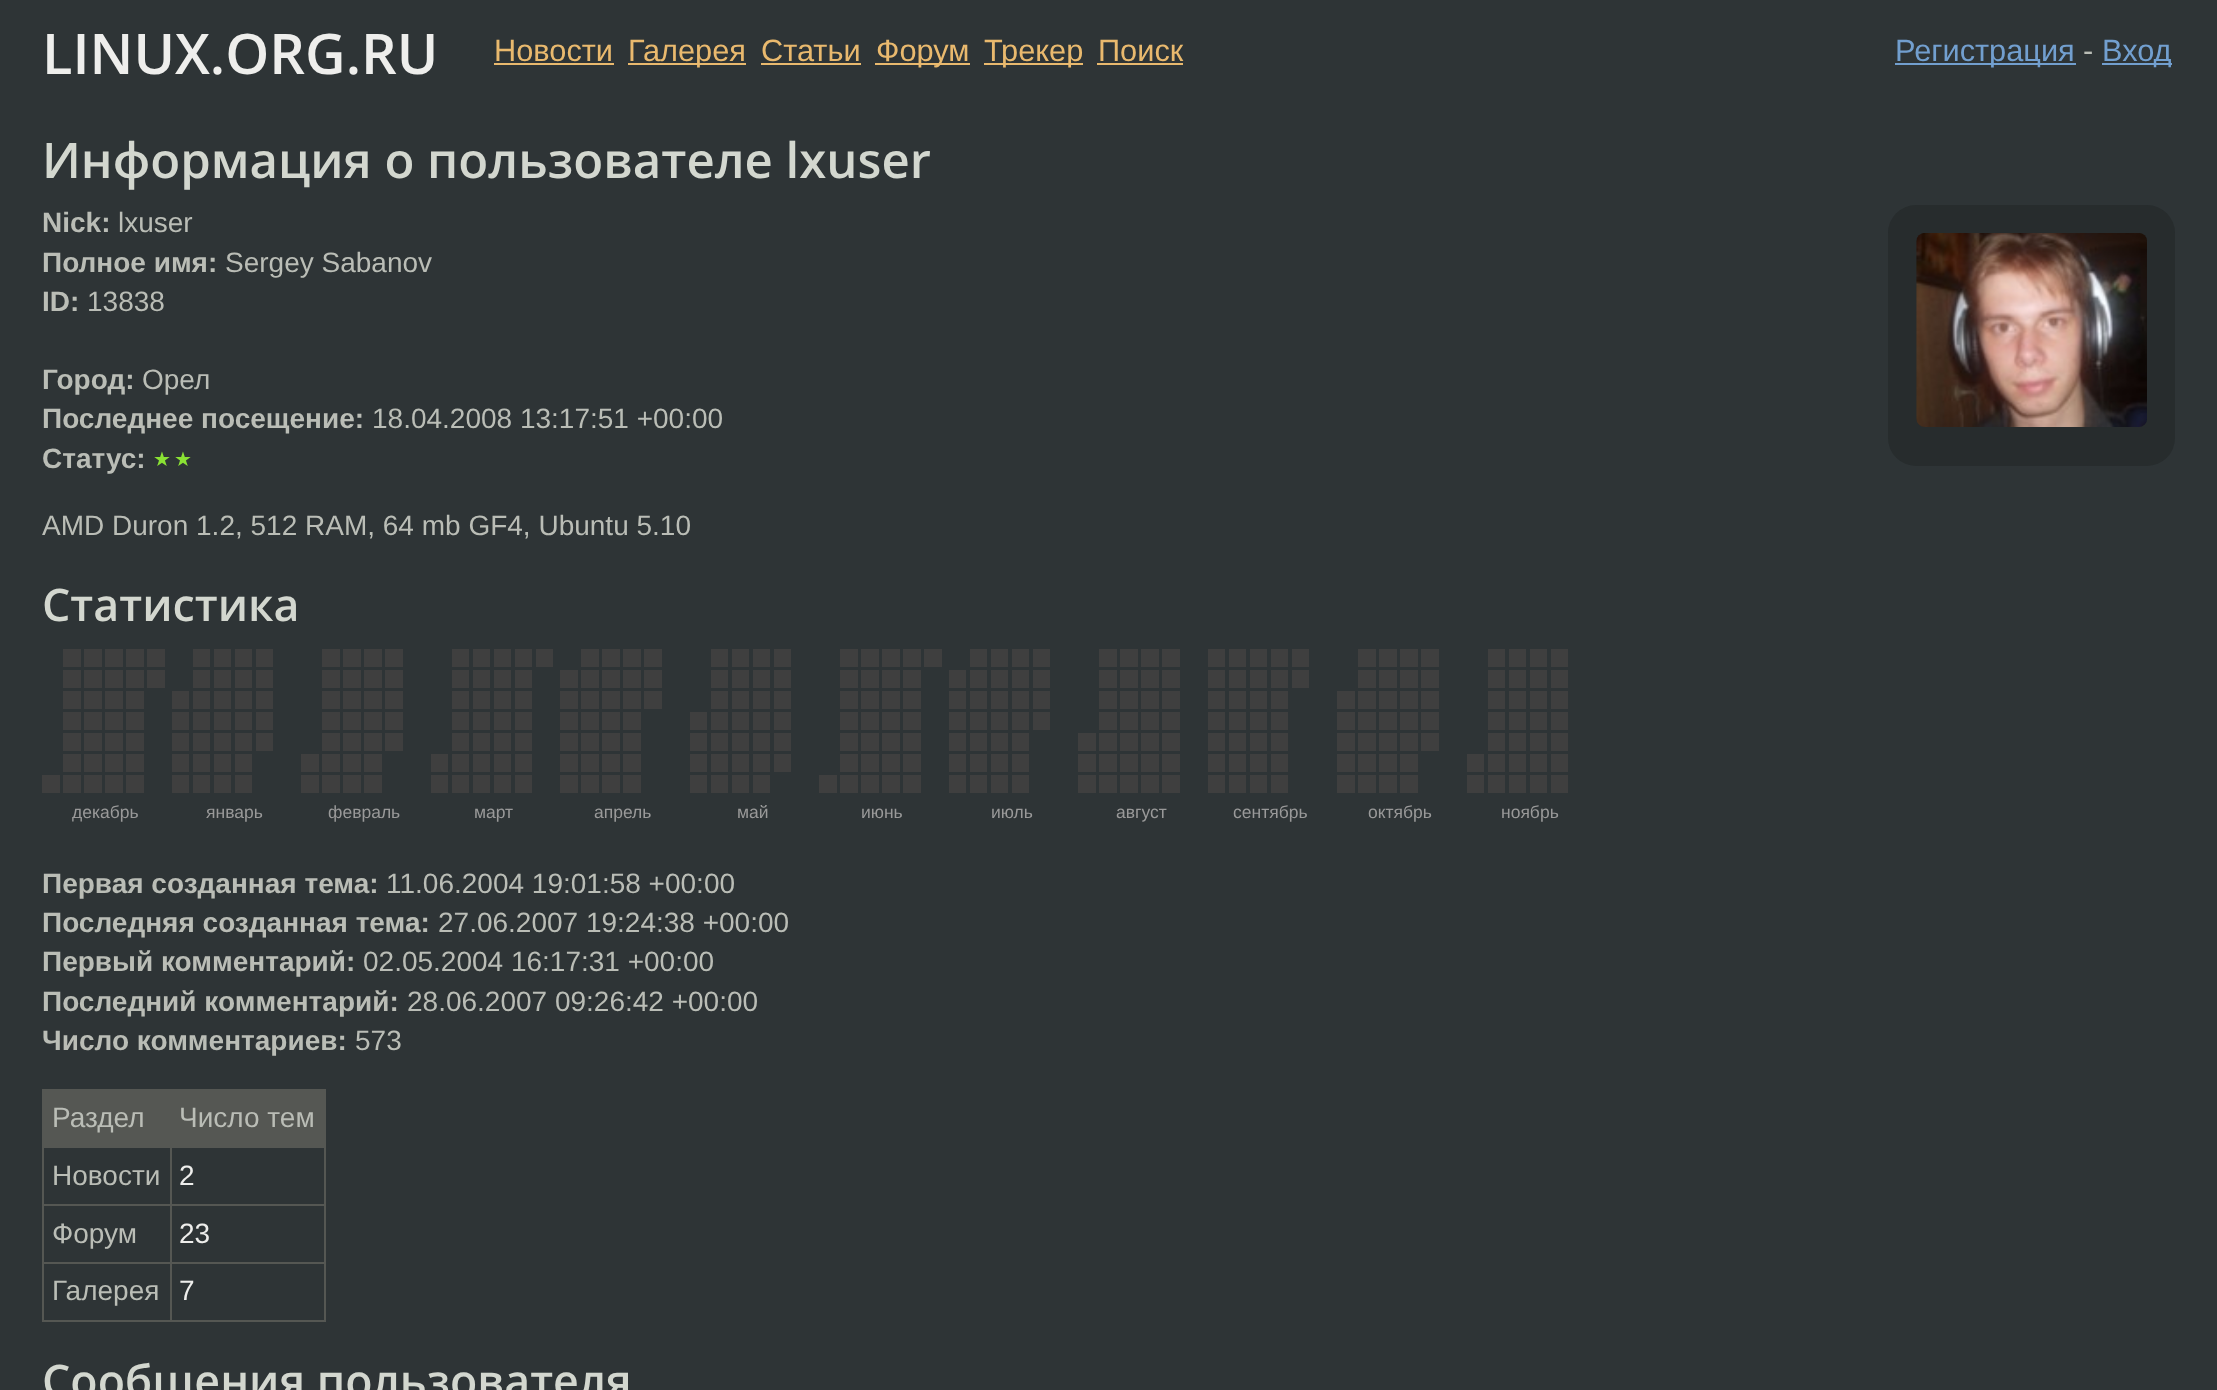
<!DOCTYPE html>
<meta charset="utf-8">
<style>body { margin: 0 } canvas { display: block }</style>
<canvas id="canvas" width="2217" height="1390"></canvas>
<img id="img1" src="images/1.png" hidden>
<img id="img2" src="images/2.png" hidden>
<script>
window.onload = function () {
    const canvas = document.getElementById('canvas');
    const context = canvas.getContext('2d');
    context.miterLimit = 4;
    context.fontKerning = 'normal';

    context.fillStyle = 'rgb(46, 52, 54)';
    context.fillRect(0, 0, 2217, 1390);
    context.fillStyle = 'rgb(233, 185, 110)';
    context.fillRect(494, 63, 120, 2);
    context.fillRect(628, 63, 118, 2);
    context.fillRect(761, 63, 100, 2);
    context.fillRect(875, 63, 95, 2);
    context.fillRect(984, 63, 99, 2);
    context.fillRect(1097, 63, 86, 2);
    context.fillStyle = 'rgb(114, 159, 207)';
    context.fillRect(1895, 63, 181, 2);
    context.fillRect(2102, 63, 70, 2);
    context.drawImage(document.getElementById('img1'), 42, 649, 1526, 144);
    context.fillStyle = 'rgb(85, 87, 83)';
    context.fillRect(44, 1091, 280, 55);
    context.fillRect(42, 1089, 284, 2);
    context.fillRect(170, 1146, 156, 2);
    context.fillRect(170, 1204, 156, 2);
    context.fillRect(170, 1262, 156, 2);
    context.fillRect(324, 1262, 2, 59);
    context.fillRect(170, 1320, 156, 2);
    context.fillRect(170, 1262, 2, 59);
    context.fillRect(42, 1262, 130, 2);
    context.fillRect(170, 1204, 2, 60);
    context.fillRect(42, 1204, 130, 2);
    context.fillRect(170, 1146, 2, 60);
    context.fillRect(42, 1146, 130, 2);
    context.fillRect(42, 1320, 130, 2);
    context.fillRect(42, 1262, 2, 59);
    context.fillRect(42, 1204, 2, 60);
    context.fillRect(42, 1146, 2, 60);
    context.fillRect(42, 1089, 2, 59);
    context.fillRect(324, 1204, 2, 60);
    context.fillRect(324, 1146, 2, 60);
    context.fillRect(324, 1089, 2, 59);
    context.fillStyle = 'rgb(39, 44, 45)';
    context.beginPath();
    context.roundRect(1888, 205, 287, 261, 28);
    context.fill();
    context.drawImage(document.getElementById('img2'), 1916, 233, 231, 194);
    context.font = '600 56px Open Sans';
    context.fillStyle = 'rgb(238, 238, 236)';
    context.fillText('LINUX.ORG.RU', 42, 74);
    context.font = '30.75px Liberation Sans';
    context.fillStyle = 'rgb(233, 185, 110)';
    context.fillText('Новости', 494, 61);
    context.fillText('Галерея', 628, 61);
    context.fillText('Статьи', 761, 61);
    context.fillText('Форум', 876, 61);
    context.fillText('Трекер', 984, 61);
    context.fillText('Поиск', 1098, 61);
    context.fillStyle = 'rgb(114, 159, 207)';
    context.fillText('Регистрация', 1895, 61);
    context.fillStyle = 'rgb(186, 189, 182)';
    context.fillText('-', 2083, 61);
    context.fillStyle = 'rgb(114, 159, 207)';
    context.fillText('Вход', 2102, 61);
    context.font = '600 49.1px Open Sans';
    context.fillStyle = 'rgb(211, 215, 207)';
    context.fillText('Информация о пользователе lxuser', 42, 178);
    context.font = 'bold 28px Liberation Sans';
    context.fillStyle = 'rgb(186, 189, 182)';
    context.fillText('Nick:', 42, 232);
    context.font = '28px Liberation Sans';
    context.fillText('lxuser', 118, 232);
    context.font = 'bold 28px Liberation Sans';
    context.fillText('Полное имя:', 42, 272);
    context.font = '28px Liberation Sans';
    context.fillText('Sergey Sabanov', 225, 272);
    context.font = 'bold 28px Liberation Sans';
    context.fillText('ID:', 42, 311);
    context.font = '28px Liberation Sans';
    context.fillText('13838', 87, 311);
    context.font = 'bold 28px Liberation Sans';
    context.fillText('Город:', 42, 389);
    context.font = '28px Liberation Sans';
    context.fillText('Орел', 142, 389);
    context.font = 'bold 28px Liberation Sans';
    context.fillText('Последнее посещение:', 42, 428);
    context.font = '28px Liberation Sans';
    context.fillText('18.04.2008 13:17:51 +00:00', 372, 428);
    context.font = 'bold 28px Liberation Sans';
    context.fillText('Статус:', 42, 468);
    context.letterSpacing = '3px';
    context.font = '20px DejaVu Sans';
    context.fillStyle = 'rgb(138, 226, 52)';
    context.fillText('★★', 153, 466);
    context.letterSpacing = '0px';
    context.font = '28px Liberation Sans';
    context.fillStyle = 'rgb(186, 189, 182)';
    context.fillText('AMD Duron 1.2, 512 RAM, 64 mb GF4, Ubuntu 5.10', 42, 535);
    context.font = '600 44.75px Open Sans';
    context.fillStyle = 'rgb(211, 215, 207)';
    context.fillText('Статистика', 42, 621);
    context.font = '17.5px Liberation Sans';
    context.fillStyle = 'rgb(153, 153, 153)';
    context.fillText('декабрь', 72, 818);
    context.fillText('январь', 206, 818);
    context.fillText('февраль', 328, 818);
    context.fillText('март', 474, 818);
    context.fillText('апрель', 594, 818);
    context.fillText('май', 737, 818);
    context.fillText('июнь', 861, 818);
    context.fillText('июль', 991, 818);
    context.fillText('август', 1116, 818);
    context.fillText('сентябрь', 1233, 818);
    context.fillText('октябрь', 1368, 818);
    context.fillText('ноябрь', 1501, 818);
    context.font = 'bold 28px Liberation Sans';
    context.fillStyle = 'rgb(186, 189, 182)';
    context.fillText('Первая созданная тема:', 42, 893);
    context.font = '28px Liberation Sans';
    context.fillText('11.06.2004 19:01:58 +00:00', 386, 893);
    context.font = 'bold 28px Liberation Sans';
    context.fillText('Последняя созданная тема:', 42, 932);
    context.font = '28px Liberation Sans';
    context.fillText('27.06.2007 19:24:38 +00:00', 438, 932);
    context.font = 'bold 28px Liberation Sans';
    context.fillText('Первый комментарий:', 42, 971);
    context.font = '28px Liberation Sans';
    context.fillText('02.05.2004 16:17:31 +00:00', 363, 971);
    context.font = 'bold 28px Liberation Sans';
    context.fillText('Последний комментарий:', 42, 1011);
    context.font = '28px Liberation Sans';
    context.fillText('28.06.2007 09:26:42 +00:00', 407, 1011);
    context.font = 'bold 28px Liberation Sans';
    context.fillText('Число комментариев:', 42, 1050);
    context.font = '28px Liberation Sans';
    context.fillText('573', 355, 1050);
    context.fillText('Раздел', 52, 1127);
    context.fillText('Число тем', 179, 1127);
    context.fillText('Новости', 52, 1185);
    context.fillStyle = 'rgb(238, 238, 236)';
    context.fillText('2', 179, 1185);
    context.fillStyle = 'rgb(186, 189, 182)';
    context.fillText('Форум', 52, 1243);
    context.fillStyle = 'rgb(238, 238, 236)';
    context.fillText('23', 179, 1243);
    context.fillStyle = 'rgb(186, 189, 182)';
    context.fillText('Галерея', 52, 1300);
    context.fillStyle = 'rgb(238, 238, 236)';
    context.fillText('7', 179, 1300);
    context.font = '600 44.75px Open Sans';
    context.fillStyle = 'rgb(211, 215, 207)';
    context.fillText('Сообщения пользователя', 42, 1397);
};
</script>
